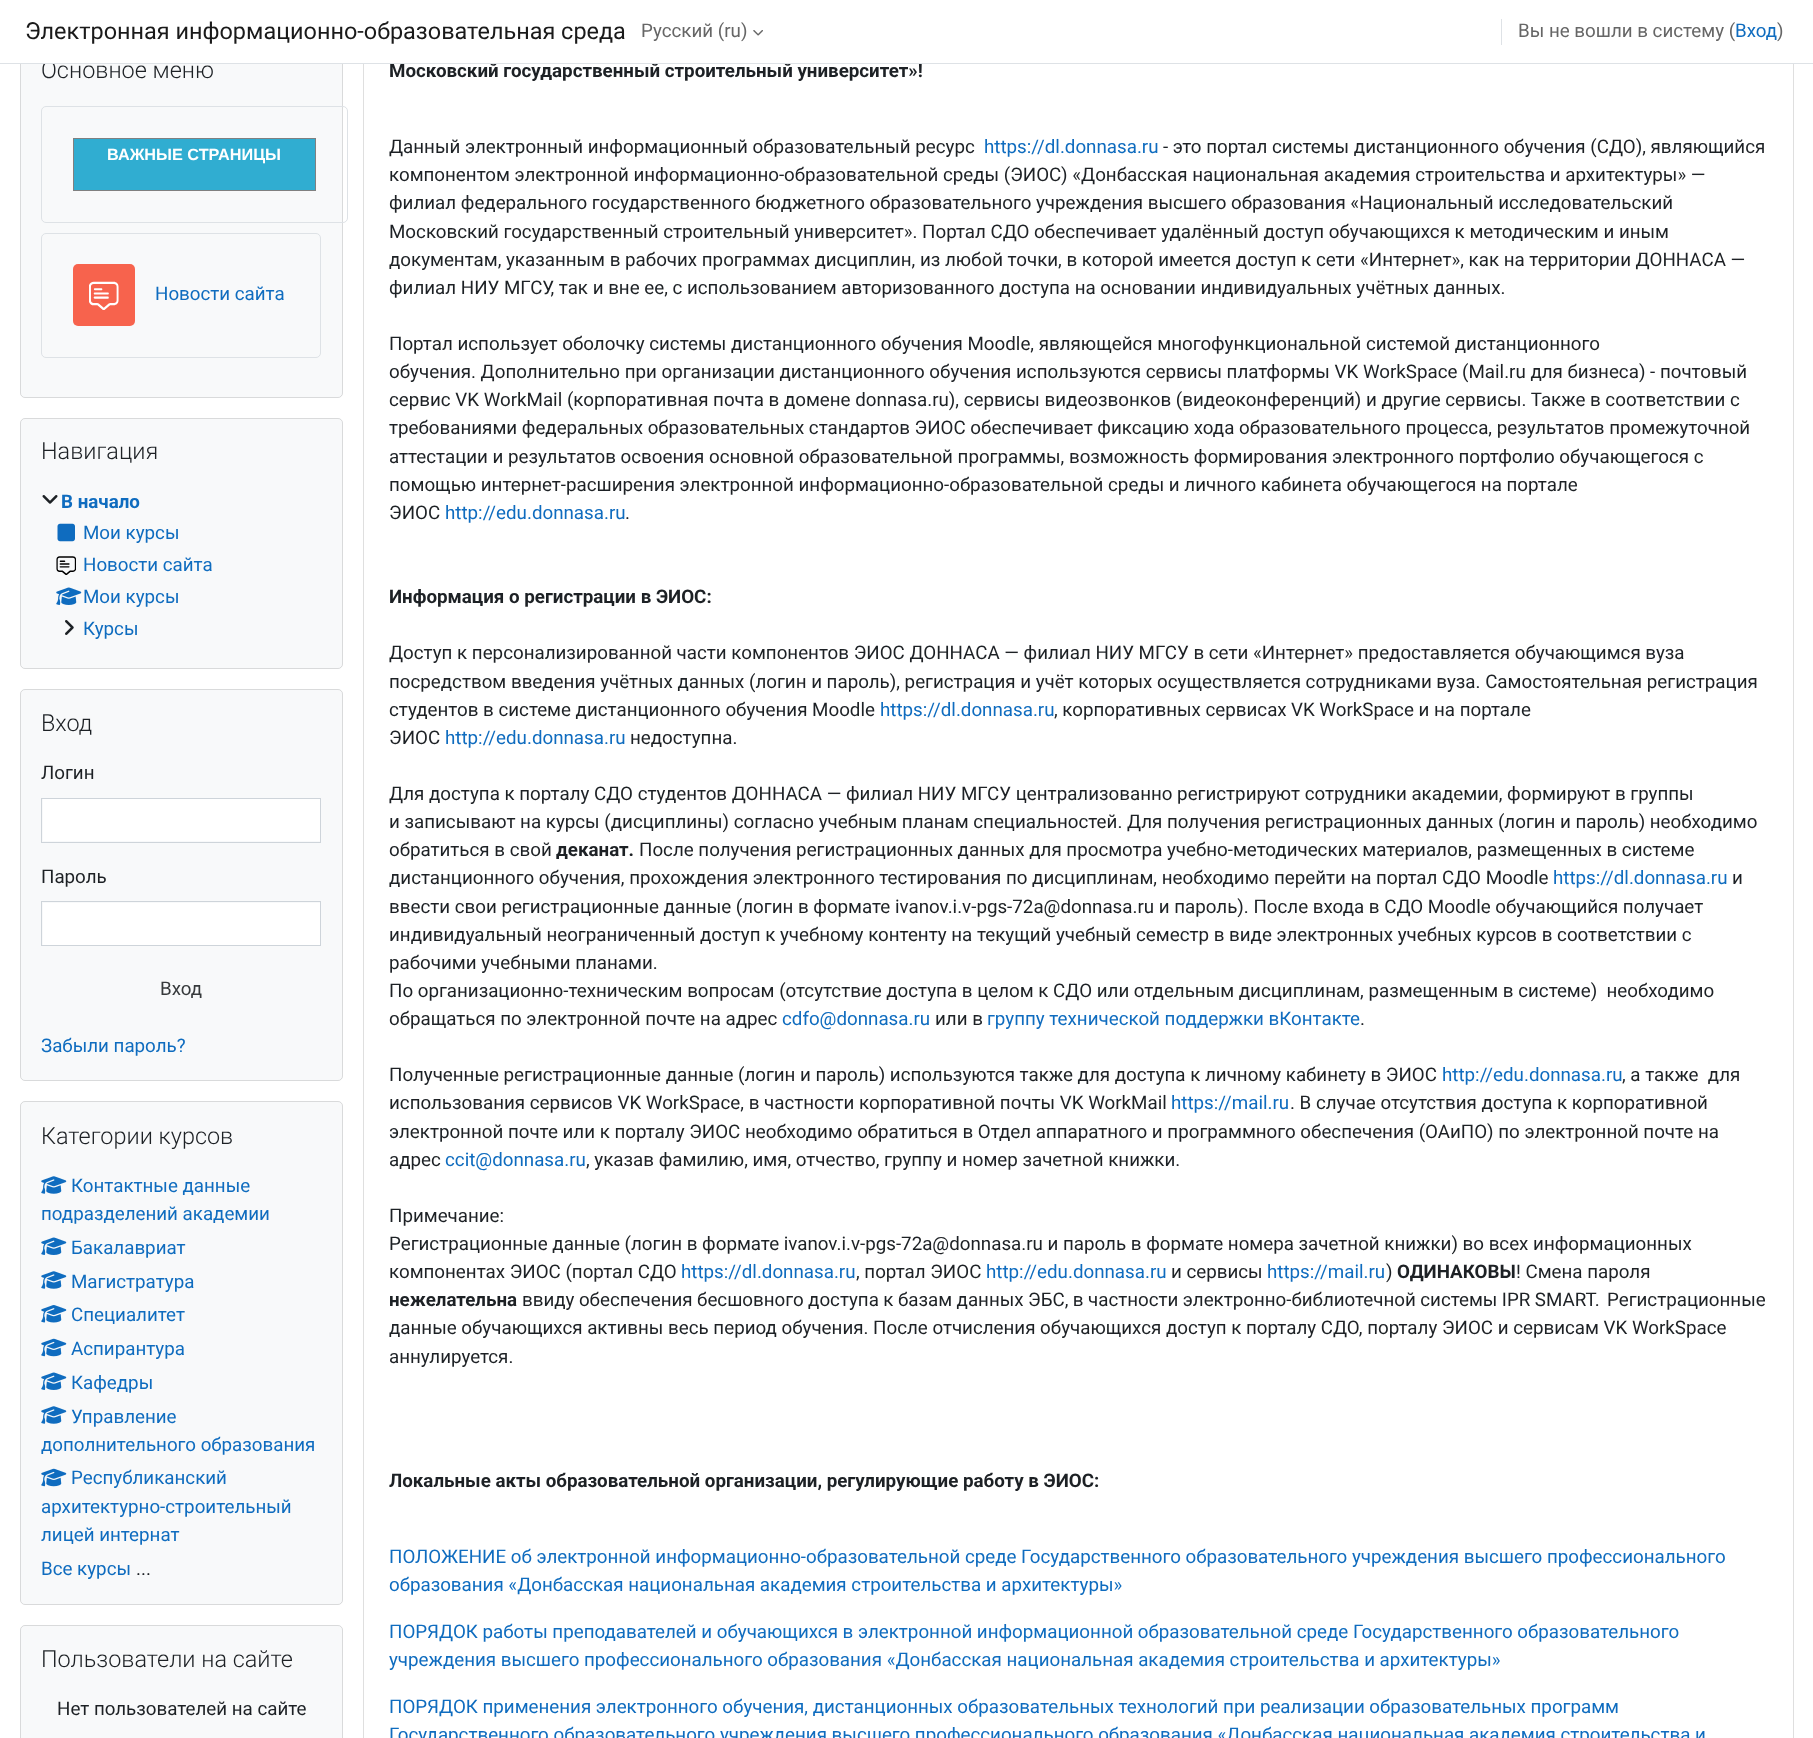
<!DOCTYPE html>
<meta charset="utf-8">
<style>body { margin: 0 } canvas { display: block }</style>
<canvas id="canvas" width="1813" height="1738"></canvas>
<img id="img1" src="images/2.png" hidden>
<img id="img2" src="images/3.png" hidden>
<img id="img3" src="images/4.png" hidden>
<img id="img4" src="images/5.png" hidden>
<img id="img5" src="images/6.png" hidden>
<img id="img6" src="images/7.png" hidden>
<img id="img7" src="images/8.png" hidden>
<img id="img8" src="images/9.png" hidden>
<img id="img9" src="images/10.png" hidden>
<img id="img10" src="images/1.png" hidden>
<script>
window.onload = function () {
    const canvas = document.getElementById('canvas');
    const context = canvas.getContext('2d');
    context.miterLimit = 4;
    context.fontKerning = 'normal';

    context.fillStyle = 'rgb(255, 255, 255)';
    context.fillRect(0, 0, 1813, 1738);
    context.fillStyle = 'rgb(248, 249, 250)';
    context.beginPath();
    context.roundRect(20, 36, 323, 362, 5);
    context.fill();
    context.beginPath();
    context.roundRect(20.5, 36.5, 322, 361, 4.5);
    context.strokeStyle = 'rgba(0, 0, 0, 0.12)';
    context.stroke();
    context.beginPath();
    context.roundRect(41.5, 106.5, 306, 116, 4.5);
    context.strokeStyle = 'rgb(222, 226, 230)';
    context.stroke();
    context.fillStyle = 'rgb(48, 173, 209)';
    context.fillRect(74, 139, 241, 51);
    context.fillStyle = 'rgb(128, 128, 128)';
    context.fillRect(73, 138, 243, 1);
    context.fillRect(315, 138, 1, 53);
    context.fillRect(73, 190, 243, 1);
    context.fillRect(73, 138, 1, 53);
    context.beginPath();
    context.roundRect(41.5, 233.5, 279, 124, 4.5);
    context.stroke();
    context.fillStyle = 'rgb(247, 99, 77)';
    context.beginPath();
    context.roundRect(73, 264, 62, 62, 5);
    context.fill();
    context.drawImage(document.getElementById('img1'), 89, 281, 30, 29);
    context.fillStyle = 'rgb(248, 249, 250)';
    context.beginPath();
    context.roundRect(20, 418, 323, 251, 5);
    context.fill();
    context.beginPath();
    context.roundRect(20.5, 418.5, 322, 250, 4.5);
    context.strokeStyle = 'rgba(0, 0, 0, 0.12)';
    context.stroke();
    context.drawImage(document.getElementById('img2'), 42, 495, 16, 9);
    context.drawImage(document.getElementById('img3'), 57, 523, 18, 19);
    context.drawImage(document.getElementById('img4'), 56, 556, 20, 19);
    context.drawImage(document.getElementById('img5'), 56, 587, 26, 18);
    context.drawImage(document.getElementById('img6'), 65, 620, 9, 15);
    context.beginPath();
    context.roundRect(20, 689, 323, 392, 5);
    context.fill();
    context.beginPath();
    context.roundRect(20.5, 689.5, 322, 391, 4.5);
    context.stroke();
    context.fillStyle = 'rgb(255, 255, 255)';
    context.fillRect(43, 799, 277, 42);
    context.strokeStyle = 'rgb(206, 212, 218)';
    context.strokeRect(41.5, 798.5, 279, 44);
    context.fillRect(43, 903, 277, 42);
    context.strokeRect(41.5, 901.5, 279, 44);
    context.fillStyle = 'rgb(248, 249, 250)';
    context.beginPath();
    context.roundRect(20, 1101, 323, 504, 5);
    context.fill();
    context.beginPath();
    context.roundRect(20.5, 1101.5, 322, 503, 4.5);
    context.strokeStyle = 'rgba(0, 0, 0, 0.12)';
    context.stroke();
    context.drawImage(document.getElementById('img7'), 41, 1176, 26, 18);
    context.drawImage(document.getElementById('img5'), 41, 1237, 26, 18);
    context.drawImage(document.getElementById('img7'), 41, 1271, 26, 18);
    context.drawImage(document.getElementById('img8'), 41, 1305, 26, 18);
    context.drawImage(document.getElementById('img9'), 41, 1338, 26, 19);
    context.drawImage(document.getElementById('img5'), 41, 1372, 26, 18);
    context.drawImage(document.getElementById('img7'), 41, 1406, 26, 18);
    context.drawImage(document.getElementById('img9'), 41, 1468, 26, 19);
    context.beginPath();
    context.roundRect(20, 1625, 323, 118, 5);
    context.fill();
    context.beginPath();
    context.roundRect(20.5, 1625.5, 322, 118, 4.5);
    context.stroke();
    context.strokeStyle = 'rgb(223, 223, 223)';
    context.strokeRect(363.5, -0.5, 1430, 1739);
    context.font = '300 23.45px Roboto';
    context.fillStyle = 'rgb(29, 33, 37)';
    context.fillText('Основное меню', 41, 78);
    context.fillStyle = 'rgb(255, 255, 255)';
    context.fillRect(20, 0, 1774, 63);
    context.drawImage(document.getElementById('img10'), 753, 30, 10, 6);
    context.font = '18.75px Roboto';
    context.fillStyle = 'rgb(102, 102, 102)';
    context.fillText('Русский (ru)', 641, 37);
    context.fillText(')', 1777, 37);
    context.fillStyle = 'rgb(15, 108, 191)';
    context.fillText('Вход', 1735, 37);
    context.fillStyle = 'rgb(102, 102, 102)';
    context.fillText('Вы не вошли в систему (', 1518, 37);
    context.fillStyle = 'rgb(222, 226, 230)';
    context.fillRect(1501, 19, 1, 26);
    context.font = '23.45px Roboto';
    context.fillStyle = 'rgb(26, 26, 26)';
    context.fillText('Электронная информационно-образовательная среда', 25, 39);
    context.font = 'bold 16.25px Liberation Sans';
    context.fillStyle = 'rgb(255, 255, 255)';
    context.fillText('ВАЖНЫЕ СТРАНИЦЫ', 107, 160);
    context.font = '18.75px Roboto';
    context.fillStyle = 'rgb(15, 108, 191)';
    context.fillText('Новости сайта', 155, 300);
    context.font = '300 23.45px Roboto';
    context.fillStyle = 'rgb(29, 33, 37)';
    context.fillText('Навигация', 41, 459);
    context.font = 'bold 18.75px Roboto';
    context.fillStyle = 'rgb(15, 108, 191)';
    context.fillText('В начало', 61, 508);
    context.font = '18.75px Roboto';
    context.fillText('Мои курсы', 83, 539);
    context.fillText('Новости сайта', 83, 571);
    context.fillText('Мои курсы', 83, 603);
    context.fillText('Курсы', 83, 635);
    context.font = '300 23.45px Roboto';
    context.fillStyle = 'rgb(29, 33, 37)';
    context.fillText('Вход', 41, 731);
    context.font = '18.75px Roboto';
    context.fillText('Логин', 41, 779);
    context.fillText('Пароль', 41, 883);
    context.fillStyle = 'rgb(55, 58, 60)';
    context.fillText('Вход', 160, 995);
    context.fillStyle = 'rgb(15, 108, 191)';
    context.fillText('Забыли пароль?', 41, 1052);
    context.font = '300 23.45px Roboto';
    context.fillStyle = 'rgb(29, 33, 37)';
    context.fillText('Категории курсов', 41, 1144);
    context.font = '18.75px Roboto';
    context.fillStyle = 'rgb(15, 108, 191)';
    context.fillText('Контактные данные', 71, 1192);
    context.fillText('подразделений академии', 41, 1220);
    context.fillText('Бакалавриат', 71, 1254);
    context.fillText('Магистратура', 71, 1288);
    context.fillText('Специалитет', 71, 1321);
    context.fillText('Аспирантура', 71, 1355);
    context.fillText('Кафедры', 71, 1389);
    context.fillText('Управление', 71, 1423);
    context.fillText('дополнительного образования', 41, 1451);
    context.fillText('Республиканский', 71, 1484);
    context.fillText('архитектурно-строительный', 41, 1513);
    context.fillText('лицей интернат', 41, 1541);
    context.fillText('Все курсы', 41, 1575);
    context.fillStyle = 'rgb(29, 33, 37)';
    context.fillText('...', 136, 1575);
    context.font = '300 23.45px Roboto';
    context.fillText('Пользователи на сайте', 41, 1667);
    context.font = '18.75px Roboto';
    context.fillText('Нет пользователей на сайте', 57, 1715);
    context.font = 'bold 18.75px Roboto';
    context.fillText('Московский государственный строительный университет»!', 389, 77);
    context.fillStyle = 'rgb(222, 226, 230)';
    context.fillRect(0, 63, 1813, 1);
    context.font = '18.75px Roboto';
    context.fillStyle = 'rgb(29, 33, 37)';
    context.fillText('Данный электронный информационный образовательный ресурс', 389, 153);
    context.fillStyle = 'rgb(15, 108, 191)';
    context.fillText('https://dl.donnasa.ru', 984, 153);
    context.fillStyle = 'rgb(29, 33, 37)';
    context.fillText('- это портал системы дистанционного обучения (СДО), являющийся', 1163, 153);
    context.fillText('компонентом электронной информационно-образовательной среды (ЭИОС) «Донбасская национальная академия строительства и архитектуры» —', 389, 181);
    context.fillText('филиал федерального государственного бюджетного образовательного учреждения высшего образования «Национальный исследовательский', 389, 209);
    context.fillText('Московский государственный строительный университет». Портал СДО обеспечивает удалённый доступ обучающихся к методическим и иным', 389, 238);
    context.fillText('документам, указанным в рабочих программах дисциплин, из любой точки, в которой имеется доступ к сети «Интернет», как на территории ДОННАСА —', 389, 266);
    context.fillText('филиал НИУ МГСУ, так и вне ее, с использованием авторизованного доступа на основании индивидуальных учётных данных.', 389, 294);
    context.fillText('Портал использует оболочку системы дистанционного обучения Moodle, являющейся многофункциональной системой дистанционного', 389, 350);
    context.fillText('обучения. Дополнительно при организации дистанционного обучения используются сервисы платформы VK WorkSpace (Mail.ru для бизнеса) - почтовый', 389, 378);
    context.fillText('сервис VK WorkMail (корпоративная почта в домене donnasa.ru), сервисы видеозвонков (видеоконференций) и другие сервисы. Также в соответствии с', 389, 406);
    context.fillText('требованиями федеральных образовательных стандартов ЭИОС обеспечивает фиксацию хода образовательного процесса, результатов промежуточной', 389, 434);
    context.fillText('аттестации и результатов освоения основной образовательной программы, возможность формирования электронного портфолио обучающегося с', 389, 463);
    context.fillText('помощью интернет-расширения электронной информационно-образовательной среды и личного кабинета обучающегося на портале', 389, 491);
    context.fillText('ЭИОС', 389, 519);
    context.fillStyle = 'rgb(15, 108, 191)';
    context.fillText('http://edu.donnasa.ru', 445, 519);
    context.fillStyle = 'rgb(29, 33, 37)';
    context.fillText('.', 625, 519);
    context.font = 'bold 18.75px Roboto';
    context.fillText('Информация о регистрации в ЭИОС:', 389, 603);
    context.font = '18.75px Roboto';
    context.fillText('Доступ к персонализированной части компонентов ЭИОС ДОННАСА — филиал НИУ МГСУ в сети «Интернет» предоставляется обучающимся вуза', 389, 659);
    context.fillText('посредством введения учётных данных (логин и пароль), регистрация и учёт которых осуществляется сотрудниками вуза. Самостоятельная регистрация', 389, 688);
    context.fillText('студентов в системе дистанционного обучения Moodle', 389, 716);
    context.fillStyle = 'rgb(15, 108, 191)';
    context.fillText('https://dl.donnasa.ru', 880, 716);
    context.fillStyle = 'rgb(29, 33, 37)';
    context.fillText(', корпоративных сервисах', 1054, 716);
    context.fillText('VK WorkSpace и на портале', 1291, 716);
    context.fillText('ЭИОС', 389, 744);
    context.fillStyle = 'rgb(15, 108, 191)';
    context.fillText('http://edu.donnasa.ru', 445, 744);
    context.fillStyle = 'rgb(29, 33, 37)';
    context.fillText('недоступна.', 630, 744);
    context.fillText('Для доступа к порталу СДО студентов ДОННАСА — филиал НИУ МГСУ централизованно регистрируют сотрудники академии, формируют в группы', 389, 800);
    context.fillText('и записывают на курсы (дисциплины) согласно учебным планам специальностей. Для получения регистрационных данных (логин и пароль) необходимо', 389, 828);
    context.fillText('обратиться в свой', 389, 856);
    context.font = 'bold 18.75px Roboto';
    context.fillText('деканат.', 556, 856);
    context.font = '18.75px Roboto';
    context.fillText('После получения регистрационных данных для просмотра учебно-методических материалов, размещенных в системе', 639, 856);
    context.fillText('дистанционного обучения, прохождения электронного тестирования по дисциплинам, необходимо перейти на портал СДО Moodle', 389, 884);
    context.fillStyle = 'rgb(15, 108, 191)';
    context.fillText('https://dl.donnasa.ru', 1553, 884);
    context.fillStyle = 'rgb(29, 33, 37)';
    context.fillText('и', 1732, 884);
    context.fillText('ввести свои регистрационные данные (логин в формате ivanov.i.v-pgs-72a@donnasa.ru и пароль). После входа в СДО Moodle обучающийся получает', 389, 913);
    context.fillText('индивидуальный неограниченный доступ к учебному контенту на текущий учебный семестр в виде электронных учебных курсов в соответствии с', 389, 941);
    context.fillText('рабочими учебными планами.', 389, 969);
    context.fillText('По организационно-техническим вопросам (отсутствие доступа в целом к СДО или отдельным дисциплинам, размещенным в системе)  необходимо', 389, 997);
    context.fillText('обращаться по электронной почте на адрес', 389, 1025);
    context.fillStyle = 'rgb(15, 108, 191)';
    context.fillText('cdfo@donnasa.ru', 782, 1025);
    context.fillStyle = 'rgb(29, 33, 37)';
    context.fillText('или в', 935, 1025);
    context.fillStyle = 'rgb(15, 108, 191)';
    context.fillText('группу технической поддержки вКонтакте', 987, 1025);
    context.fillStyle = 'rgb(29, 33, 37)';
    context.fillText('.', 1360, 1025);
    context.fillText('Полученные регистрационные данные (логин и пароль) используются также для доступа к личному кабинету в ЭИОС', 389, 1081);
    context.fillStyle = 'rgb(15, 108, 191)';
    context.fillText('http://edu.donnasa.ru', 1442, 1081);
    context.fillStyle = 'rgb(29, 33, 37)';
    context.fillText(', а также  для', 1622, 1081);
    context.fillText('использования сервисов VK WorkSpace, в частности корпоративной почты VK WorkMail', 389, 1109);
    context.fillStyle = 'rgb(15, 108, 191)';
    context.fillText('https://mail.ru', 1171, 1109);
    context.fillStyle = 'rgb(29, 33, 37)';
    context.fillText('. В случае отсутствия доступа к корпоративной', 1290, 1109);
    context.fillText('электронной почте или к порталу ЭИОС необходимо обратиться в Отдел аппаратного и программного обеспечения (ОАиПО) по электронной почте на', 389, 1138);
    context.fillText('адрес', 389, 1166);
    context.fillStyle = 'rgb(15, 108, 191)';
    context.fillText('ccit@donnasa.ru', 445, 1166);
    context.fillStyle = 'rgb(29, 33, 37)';
    context.fillText(', указав фамилию, имя, отчество, группу и номер зачетной книжки.', 586, 1166);
    context.fillText('Примечание:', 389, 1222);
    context.fillText('Регистрационные данные (логин в формате ivanov.i.v-pgs-72a@donnasa.ru и пароль в формате номера зачетной книжки) во всех информационных', 389, 1250);
    context.fillText('компонентах ЭИОС (портал СДО', 389, 1278);
    context.fillStyle = 'rgb(15, 108, 191)';
    context.fillText('https://dl.donnasa.ru', 681, 1278);
    context.fillStyle = 'rgb(29, 33, 37)';
    context.fillText(', портал ЭИОС', 856, 1278);
    context.fillStyle = 'rgb(15, 108, 191)';
    context.fillText('http://edu.donnasa.ru', 986, 1278);
    context.fillStyle = 'rgb(29, 33, 37)';
    context.fillText('и сервисы', 1171, 1278);
    context.fillStyle = 'rgb(15, 108, 191)';
    context.fillText('https://mail.ru', 1267, 1278);
    context.fillStyle = 'rgb(29, 33, 37)';
    context.fillText(')', 1386, 1278);
    context.font = 'bold 18.75px Roboto';
    context.fillText('ОДИНАКОВЫ', 1397, 1278);
    context.font = '18.75px Roboto';
    context.fillText('! Смена пароля', 1516, 1278);
    context.font = 'bold 18.75px Roboto';
    context.fillText('нежелательна', 389, 1306);
    context.wordSpacing = '-0.2px';
    context.font = '18.75px Roboto';
    context.fillText('ввиду обеспечения бесшовного доступа к базам данных ЭБС, в частности электронно-библиотечной системы IPR SMART.', 522, 1306);
    context.wordSpacing = '0px';
    context.fillText('Регистрационные', 1607, 1306);
    context.fillText('данные обучающихся активны весь период обучения. После отчисления обучающихся доступ к порталу СДО, порталу ЭИОС и сервисам VK WorkSpace', 389, 1334);
    context.fillText('аннулируется.', 389, 1363);
    context.font = 'bold 18.75px Roboto';
    context.fillText('Локальные акты образовательной организации, регулирующие работу в ЭИОС:', 389, 1487);
    context.font = '18.75px Roboto';
    context.fillStyle = 'rgb(15, 108, 191)';
    context.fillText('ПОЛОЖЕНИЕ об электронной информационно-образовательной среде Государственного образовательного учреждения высшего профессионального', 389, 1563);
    context.fillText('образования «Донбасская национальная академия строительства и архитектуры»', 389, 1591);
    context.fillText('ПОРЯДОК работы преподавателей и обучающихся в электронной информационной образовательной среде Государственного образовательного', 389, 1638);
    context.fillText('учреждения высшего профессионального образования «Донбасская национальная академия строительства и архитектуры»', 389, 1666);
    context.fillText('ПОРЯДОК применения электронного обучения, дистанционных образовательных технологий при реализации образовательных программ', 389, 1713);
    context.fillText('Государственного образовательного учреждения высшего профессионального образования «Донбасская национальная академия строительства и', 389, 1741);
};
</script>
